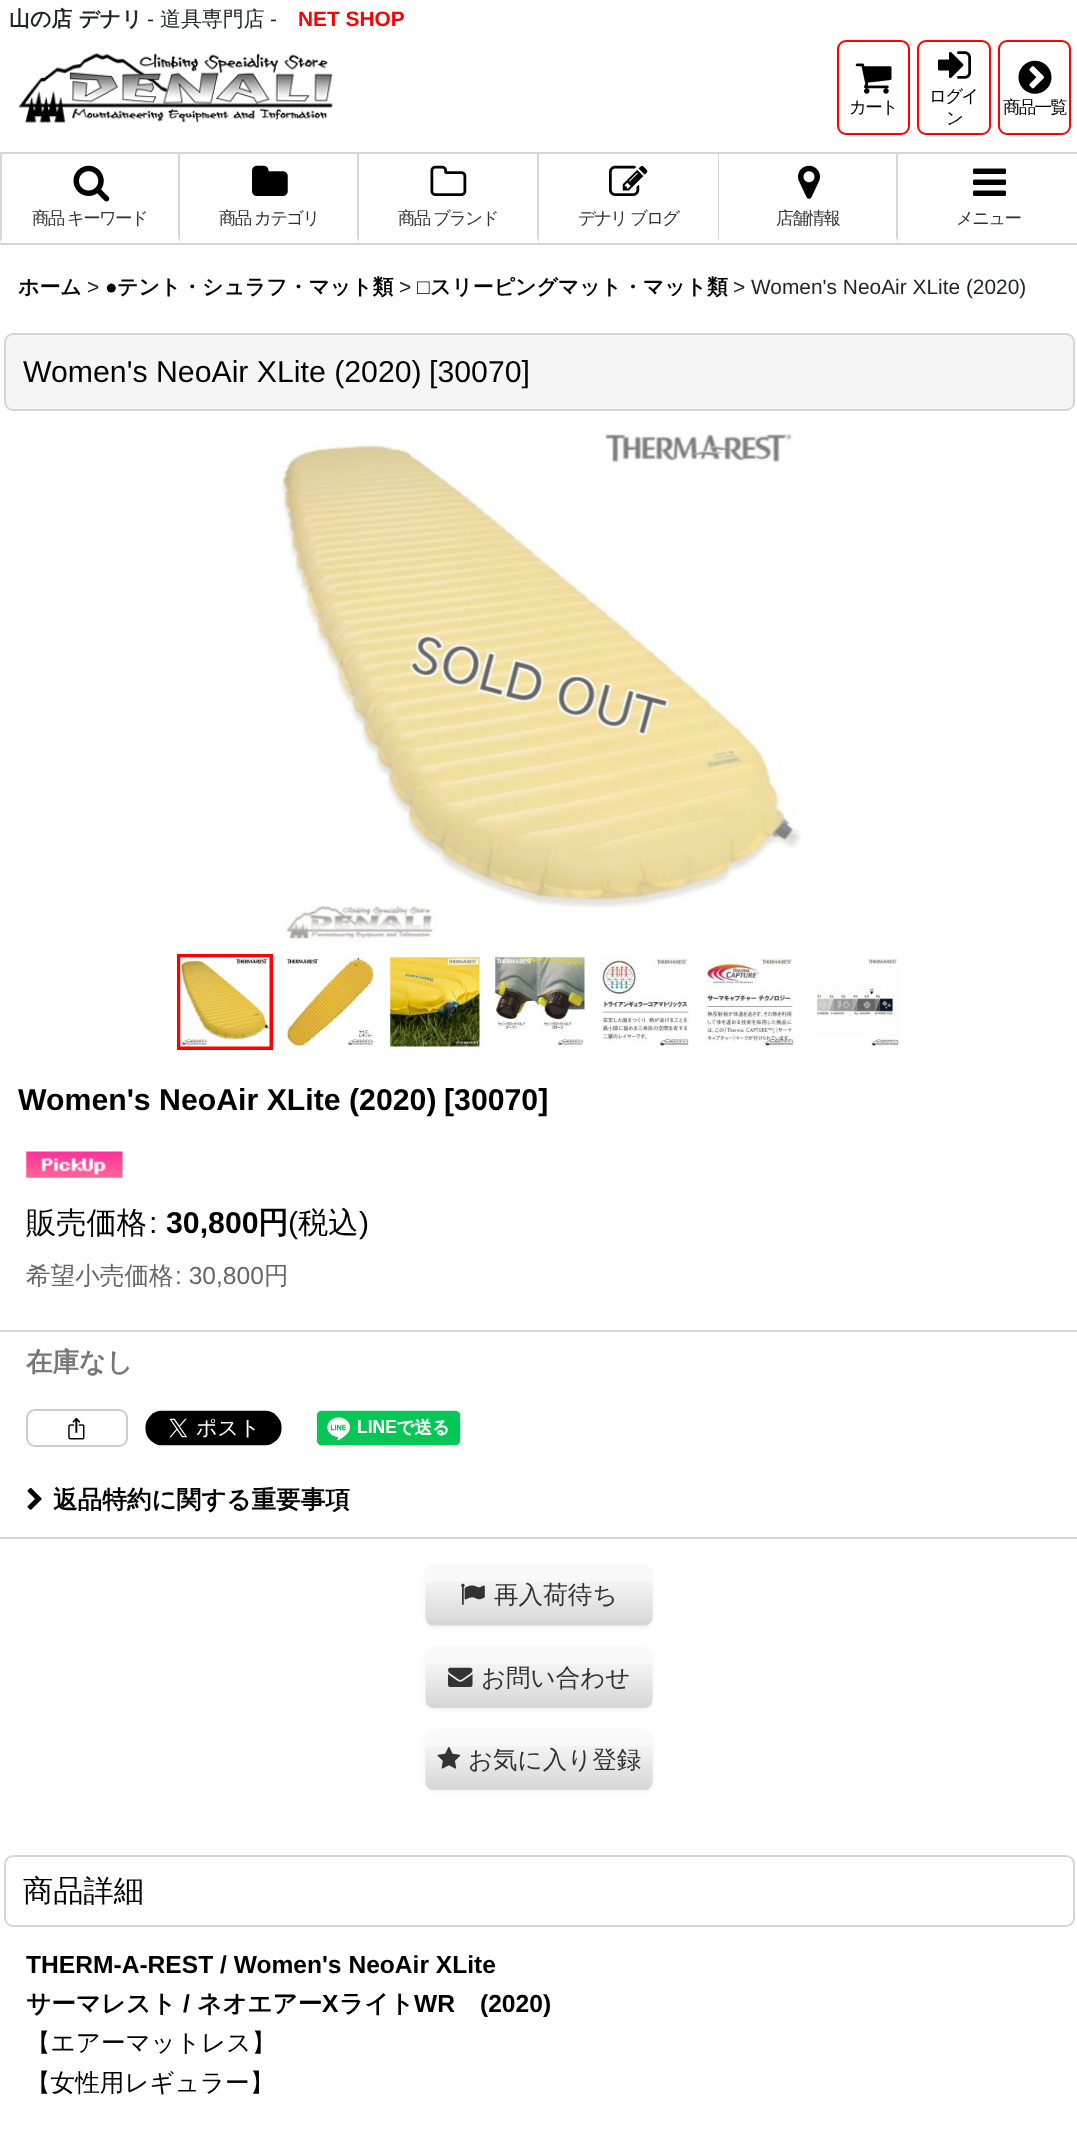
<!DOCTYPE html>
<meta charset="utf-8">
<style>body { margin: 0 } canvas { display: block }</style>
<canvas id="canvas" width="1077" height="2146"></canvas>
<img id="img1" src="images/1.png" hidden>
<img id="img2" src="images/2.png" hidden>
<img id="img3" src="images/3.png" hidden>
<img id="img4" src="images/4.png" hidden>
<img id="img5" src="images/5.png" hidden>
<img id="img6" src="images/6.png" hidden>
<img id="img7" src="images/7.png" hidden>
<img id="img8" src="images/8.png" hidden>
<img id="img9" src="images/9.png" hidden>
<img id="img10" src="images/10.png" hidden>
<img id="img11" src="images/11.png" hidden>
<img id="img12" src="images/12.png" hidden>
<img id="img13" src="images/13.png" hidden>
<img id="img14" src="images/14.png" hidden>
<img id="img15" src="images/15.png" hidden>
<img id="img16" src="images/16.png" hidden>
<img id="img17" src="images/17.png" hidden>
<img id="img18" src="images/18.png" hidden>
<img id="img19" src="images/19.png" hidden>
<img id="img20" src="images/20.png" hidden>
<img id="img21" src="images/21.png" hidden>
<img id="img22" src="images/22.png" hidden>
<img id="img23" src="images/23.png" hidden>
<img id="img24" src="images/24.png" hidden>
<img id="img25" src="images/25.png" hidden>
<img id="img26" src="images/26.png" hidden>
<img id="img27" src="images/27.png" hidden>
<img id="img28" src="images/28.png" hidden>
<img id="img29" src="images/29.png" hidden>
<script>
window.onload = function () {
    const canvas = document.getElementById('canvas');
    const context = canvas.getContext('2d');
    context.miterLimit = 4;
    context.fontKerning = 'normal';

    context.fillStyle = 'rgb(255, 255, 255)';
    context.fillRect(0, 0, 1077, 2146);
    context.fillStyle = 'rgb(214, 214, 214)';
    context.fillRect(0, 152, 1077, 2);
    context.drawImage(document.getElementById('img1'), 18, 53, 315, 70);
    context.beginPath();
    context.roundRect(838, 41, 71, 93, 8);
    context.strokeStyle = 'rgb(255, 0, 0)';
    context.lineWidth = 2;
    context.stroke();
    context.drawImage(document.getElementById('img2'), 855, 63, 37, 31);
    context.beginPath();
    context.roundRect(918, 41, 72, 93, 8);
    context.stroke();
    context.drawImage(document.getElementById('img3'), 938, 51, 33, 28);
    context.beginPath();
    context.roundRect(999, 41, 71, 93, 8);
    context.stroke();
    context.drawImage(document.getElementById('img4'), 1018, 60, 34, 34);
    context.fillRect(0, 243, 1077, 2);
    context.beginPath();
    context.moveTo(180, 154);
    context.lineTo(180, 243);
    context.lineTo(178, 238);
    context.lineTo(178, 154);
    context.closePath();
    context.fill();
    context.fillStyle = 'rgb(255, 255, 255)';
    context.beginPath();
    context.moveTo(180, 243);
    context.lineTo(0, 243);
    context.lineTo(2, 238);
    context.lineTo(178, 238);
    context.closePath();
    context.fill();
    context.fillStyle = 'rgb(214, 214, 214)';
    context.beginPath();
    context.moveTo(0, 243);
    context.lineTo(0, 154);
    context.lineTo(2, 154);
    context.lineTo(2, 238);
    context.closePath();
    context.fill();
    context.drawImage(document.getElementById('img5'), 73, 165, 37, 37);
    context.beginPath();
    context.moveTo(359, 154);
    context.lineTo(359, 243);
    context.lineTo(357, 238);
    context.lineTo(357, 154);
    context.closePath();
    context.fill();
    context.fillStyle = 'rgb(255, 255, 255)';
    context.beginPath();
    context.moveTo(359, 243);
    context.lineTo(180, 243);
    context.lineTo(180, 238);
    context.lineTo(357, 238);
    context.closePath();
    context.fill();
    context.drawImage(document.getElementById('img6'), 252, 165, 36, 31);
    context.fillStyle = 'rgb(214, 214, 214)';
    context.beginPath();
    context.moveTo(539, 154);
    context.lineTo(539, 243);
    context.lineTo(537, 238);
    context.lineTo(537, 154);
    context.closePath();
    context.fill();
    context.fillStyle = 'rgb(255, 255, 255)';
    context.beginPath();
    context.moveTo(539, 243);
    context.lineTo(359, 243);
    context.lineTo(359, 238);
    context.lineTo(537, 238);
    context.closePath();
    context.fill();
    context.drawImage(document.getElementById('img7'), 430, 165, 37, 31);
    context.fillStyle = 'rgb(214, 214, 214)';
    context.beginPath();
    context.moveTo(719, 154);
    context.lineTo(719, 243);
    context.lineTo(718, 238);
    context.lineTo(718, 154);
    context.closePath();
    context.fill();
    context.fillStyle = 'rgb(255, 255, 255)';
    context.beginPath();
    context.moveTo(719, 243);
    context.lineTo(539, 243);
    context.lineTo(539, 238);
    context.lineTo(718, 238);
    context.closePath();
    context.fill();
    context.drawImage(document.getElementById('img8'), 609, 165, 39, 31);
    context.fillStyle = 'rgb(214, 214, 214)';
    context.beginPath();
    context.moveTo(898, 154);
    context.lineTo(898, 243);
    context.lineTo(896, 238);
    context.lineTo(896, 154);
    context.closePath();
    context.fill();
    context.fillStyle = 'rgb(255, 255, 255)';
    context.beginPath();
    context.moveTo(898, 243);
    context.lineTo(719, 243);
    context.lineTo(719, 238);
    context.lineTo(896, 238);
    context.closePath();
    context.fill();
    context.drawImage(document.getElementById('img9'), 798, 165, 22, 34);
    context.drawImage(document.getElementById('img10'), 973, 168, 33, 28);
    context.fillStyle = 'rgb(245, 245, 245)';
    context.beginPath();
    context.roundRect(5, 334, 1069, 76, 8);
    context.fill();
    context.strokeStyle = 'rgb(214, 214, 214)';
    context.stroke();
    context.drawImage(document.getElementById('img11'), 277, 433, 525, 508);
    context.strokeStyle = 'rgb(255, 0, 0)';
    context.lineWidth = 4;
    context.strokeRect(179, 956, 92, 92);
    context.drawImage(document.getElementById('img12'), 180, 957, 90, 90);
    context.drawImage(document.getElementById('img13'), 285, 957, 90, 90);
    context.drawImage(document.getElementById('img14'), 390, 957, 90, 90);
    context.drawImage(document.getElementById('img15'), 495, 957, 90, 90);
    context.drawImage(document.getElementById('img16'), 600, 957, 90, 90);
    context.drawImage(document.getElementById('img17'), 705, 957, 89, 90);
    context.drawImage(document.getElementById('img18'), 816, 957, 84, 90);
    context.drawImage(document.getElementById('img19'), 26, 1151, 97, 27);
    context.fillStyle = 'rgb(214, 214, 214)';
    context.fillRect(0, 1330, 1077, 2);
    context.beginPath();
    context.roundRect(27, 1410, 100, 36, 8);
    context.strokeStyle = 'rgb(204, 204, 204)';
    context.lineWidth = 2;
    context.stroke();
    context.drawImage(document.getElementById('img20'), 68, 1417, 17, 23);
    context.drawImage(document.getElementById('img21'), 145, 1410, 137, 36);
    context.drawImage(document.getElementById('img22'), 316, 1410, 145, 36);
    context.fillRect(0, 1537, 1077, 2);
    context.drawImage(document.getElementById('img23'), 27, 1487, 15, 23);
    context.fillStyle = 'rgba(0, 0, 0, 0.05)';
    context.filter = 'blur(2px)';
    context.beginPath();
    context.roundRect(425, 1566, 228, 62, 9);
    context.fill();
    context.filter = 'none';
    context.fillStyle = 'rgb(249, 249, 249)';
    context.beginPath();
    context.roundRect(425, 1565, 228, 61, 9);
    context.fill();
    context.drawImage(document.getElementById('img24'), 425, 1582, 228, 44);
    context.drawImage(document.getElementById('img25'), 461, 1583, 24, 22);
    context.fillStyle = 'rgba(0, 0, 0, 0.05)';
    context.filter = 'blur(2px)';
    context.beginPath();
    context.roundRect(425, 1649, 228, 61, 9);
    context.fill();
    context.filter = 'none';
    context.fillStyle = 'rgb(249, 249, 249)';
    context.beginPath();
    context.roundRect(425, 1647, 228, 61, 9);
    context.fill();
    context.drawImage(document.getElementById('img26'), 425, 1664, 228, 44);
    context.drawImage(document.getElementById('img27'), 448, 1667, 25, 20);
    context.fillStyle = 'rgba(0, 0, 0, 0.05)';
    context.filter = 'blur(2px)';
    context.beginPath();
    context.roundRect(425, 1731, 228, 61, 9);
    context.fill();
    context.filter = 'none';
    context.fillStyle = 'rgb(249, 249, 249)';
    context.beginPath();
    context.roundRect(425, 1729, 228, 61, 9);
    context.fill();
    context.drawImage(document.getElementById('img28'), 425, 1746, 228, 44);
    context.drawImage(document.getElementById('img29'), 437, 1747, 24, 22);
    context.beginPath();
    context.roundRect(5, 1856, 1069, 70, 8);
    context.strokeStyle = 'rgb(214, 214, 214)';
    context.stroke();
    context.font = 'bold 20.9px WenQuanYi Zen Hei';
    context.fillStyle = 'rgb(33, 37, 41)';
    context.fillText('山の店 デナリ', 9, 26);
    context.font = '20.9px Liberation Sans';
    context.fillText('-', 147, 26);
    context.font = '500 20.9px WenQuanYi Zen Hei';
    context.fillText('道具専門店', 160, 26);
    context.font = '20.9px Liberation Sans';
    context.fillText('-', 270, 26);
    context.font = 'bold 20.9px Liberation Sans';
    context.fillStyle = 'rgb(255, 0, 0)';
    context.fillText('NET SHOP', 298, 26);
    context.letterSpacing = '-1.75px';
    context.font = '500 17.5px WenQuanYi Zen Hei';
    context.fillStyle = 'rgb(0, 0, 0)';
    context.fillText('カート', 849, 113);
    context.fillText('ログイ', 929, 102);
    context.fillText('ン', 946, 124);
    context.fillText('商品一覧', 1003, 113);
    context.fillStyle = 'rgb(51, 51, 51)';
    context.fillText('商品 キーワード', 32, 224);
    context.fillText('商品 カテゴリ', 219, 224);
    context.fillText('商品 ブランド', 398, 224);
    context.fillText('デナリ ブログ', 578, 224);
    context.fillText('店舗情報', 776, 224);
    context.fillText('メニュー', 956, 224);
    context.letterSpacing = '0px';
    context.font = 'bold 20.9px WenQuanYi Zen Hei';
    context.fillStyle = 'rgb(0, 0, 0)';
    context.fillText('ホーム', 18, 294);
    context.font = '20.9px Liberation Sans';
    context.fillStyle = 'rgb(33, 37, 41)';
    context.fillText('>', 87, 294);
    context.font = 'bold 20.9px Liberation Sans';
    context.fillStyle = 'rgb(0, 0, 0)';
    context.fillText('●', 105, 294);
    context.font = 'bold 20.9px WenQuanYi Zen Hei';
    context.fillText('テント・シュラフ・マット類', 117, 294);
    context.font = '20.9px Liberation Sans';
    context.fillStyle = 'rgb(33, 37, 41)';
    context.fillText('>', 399, 294);
    context.font = 'bold 20.9px Liberation Sans';
    context.fillStyle = 'rgb(0, 0, 0)';
    context.fillText('□', 417, 294);
    context.font = 'bold 20.9px WenQuanYi Zen Hei';
    context.fillText('スリーピングマット・マット類', 430, 294);
    context.font = '20.9px Liberation Sans';
    context.fillStyle = 'rgb(33, 37, 41)';
    context.fillText('> Women\'s NeoAir XLite (2020)', 733, 294);
    context.font = '30.25px Liberation Sans';
    context.fillStyle = 'rgb(0, 0, 0)';
    context.fillText('Women\'s NeoAir XLite (2020)', 23, 382);
    context.fillText('[30070]', 429, 382);
    context.font = 'bold 30.25px Liberation Sans';
    context.fillText('Women\'s NeoAir XLite (2020)', 18, 1110);
    context.fillText('[30070]', 444, 1110);
    context.font = '500 30.25px WenQuanYi Zen Hei';
    context.fillText('販売価格', 26, 1233);
    context.font = '30.25px Liberation Sans';
    context.fillText(':', 149, 1233);
    context.font = 'bold 30.25px Liberation Sans';
    context.fillText('30,800', 166, 1233);
    context.font = 'bold 30.25px WenQuanYi Zen Hei';
    context.fillText('円', 258, 1233);
    context.font = '30.25px Liberation Sans';
    context.fillText('(', 288, 1233);
    context.font = '500 30.25px WenQuanYi Zen Hei';
    context.fillText('税込', 298, 1233);
    context.font = '30.25px Liberation Sans';
    context.fillText(')', 359, 1233);
    context.font = '500 24.6px WenQuanYi Zen Hei';
    context.fillStyle = 'rgb(102, 102, 102)';
    context.fillText('希望小売価格', 26, 1284);
    context.font = '24.6px Liberation Sans';
    context.fillText(': 30,800', 175, 1284);
    context.font = '500 24.6px WenQuanYi Zen Hei';
    context.fillText('円', 264, 1284);
    context.font = 'bold 26.5px WenQuanYi Zen Hei';
    context.fillStyle = 'rgb(119, 119, 119)';
    context.fillText('在庫なし', 26, 1371);
    context.font = 'bold 24.6px WenQuanYi Zen Hei';
    context.fillStyle = 'rgb(0, 0, 0)';
    context.fillText('返品特約に関する重要事項', 53, 1508);
    context.font = '500 24.6px WenQuanYi Zen Hei';
    context.fillStyle = 'rgb(51, 51, 51)';
    context.fillText('再入荷待ち', 494, 1603);
    context.font = '500 24.5px WenQuanYi Zen Hei';
    context.fillText('お問い合わせ', 481, 1686);
    context.fillText('お気に入り登録', 468, 1768);
    context.font = '500 30.25px WenQuanYi Zen Hei';
    context.fillStyle = 'rgb(0, 0, 0)';
    context.fillText('商品詳細', 23, 1901);
    context.font = 'bold 24.6px Liberation Sans';
    context.fillText('THERM-A-REST / Women\'s NeoAir XLite', 26, 1973);
    context.font = 'bold 24.6px WenQuanYi Zen Hei';
    context.fillText('サーマレスト', 26, 2012);
    context.font = 'bold 24.6px Liberation Sans';
    context.fillText('/', 183, 2012);
    context.font = 'bold 24.6px WenQuanYi Zen Hei';
    context.fillText('ネオエアー', 197, 2012);
    context.font = 'bold 24.6px Liberation Sans';
    context.fillText('X', 322, 2012);
    context.font = 'bold 24.6px WenQuanYi Zen Hei';
    context.fillText('ライト', 339, 2012);
    context.font = 'bold 24.6px Liberation Sans';
    context.fillText('WR', 414, 2012);
    context.fillText('(2020)', 480, 2012);
    context.font = '500 24.6px WenQuanYi Zen Hei';
    context.fillText('【エアーマットレス】', 26, 2051);
    context.fillText('【女性用レギュラー】', 26, 2091);
};
</script>
